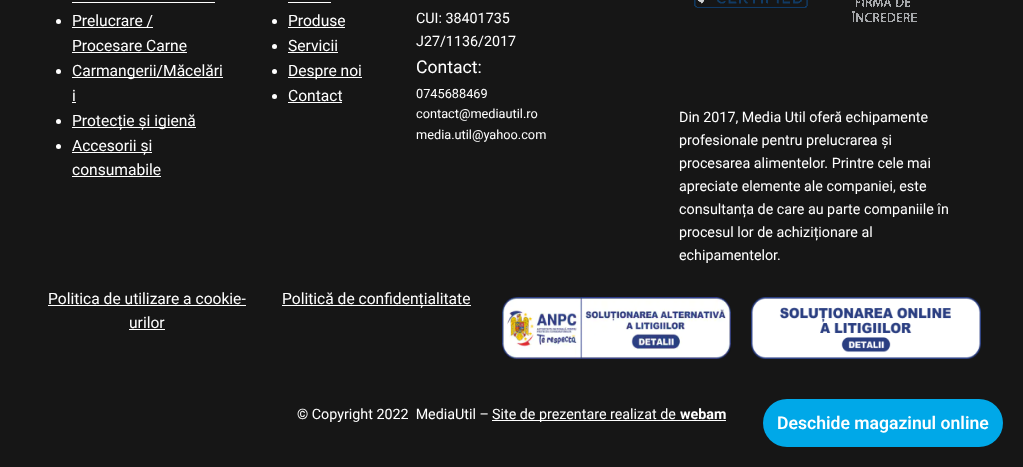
<!DOCTYPE html>
<meta charset="utf-8">
<style>body { margin: 0 } canvas { display: block }</style>
<canvas id="canvas" width="1023" height="467"></canvas>
<img id="img1" src="images/1.png" hidden>
<img id="img2" src="images/2.png" hidden>
<img id="img3" src="images/3.png" hidden>
<img id="img4" src="images/4.png" hidden>
<script>
window.onload = function () {
    const canvas = document.getElementById('canvas');
    const context = canvas.getContext('2d');
    context.miterLimit = 4;
    context.fontKerning = 'normal';

    context.fillStyle = 'rgb(22, 22, 22)';
    context.fillRect(0, 0, 1023, 467);
    context.fillStyle = 'rgb(255, 255, 255)';
    context.fillRect(72, 2, 143, 1);
    context.beginPath();
    context.arc(58.5, 21.5, 2.5, 0, 2 * Math.PI);
    context.fill();
    context.fillRect(72, 27, 81, 1);
    context.fillRect(72, 52, 115, 1);
    context.beginPath();
    context.arc(58.5, 71.5, 2.5, 0, 2 * Math.PI);
    context.fill();
    context.fillRect(72, 77, 151, 1);
    context.fillRect(72, 102, 4, 1);
    context.beginPath();
    context.arc(58.5, 121.5, 2.5, 0, 2 * Math.PI);
    context.fill();
    context.fillRect(72, 127, 124, 1);
    context.beginPath();
    context.arc(58.5, 146.5, 2.5, 0, 2 * Math.PI);
    context.fill();
    context.fillRect(72, 152, 80, 1);
    context.fillRect(72, 176, 89, 1);
    context.fillRect(288, 2, 43, 1);
    context.beginPath();
    context.arc(274.5, 21.5, 2.5, 0, 2 * Math.PI);
    context.fill();
    context.fillRect(288, 27, 57, 1);
    context.beginPath();
    context.arc(274.5, 46.5, 2.5, 0, 2 * Math.PI);
    context.fill();
    context.fillRect(288, 52, 50, 1);
    context.beginPath();
    context.arc(274.5, 71.5, 2.5, 0, 2 * Math.PI);
    context.fill();
    context.fillRect(288, 77, 74, 1);
    context.beginPath();
    context.arc(274.5, 96.5, 2.5, 0, 2 * Math.PI);
    context.fill();
    context.fillRect(288, 102, 54, 1);
    context.drawImage(document.getElementById('img1'), 694, 0, 114, 8);
    context.drawImage(document.getElementById('img2'), 852, 0, 65, 22);
    context.fillRect(48, 305, 198, 1);
    context.fillRect(129, 329, 36, 1);
    context.fillRect(282, 305, 189, 1);
    context.drawImage(document.getElementById('img3'), 502, 297, 229, 62);
    context.drawImage(document.getElementById('img4'), 751, 297, 230, 62);
    context.fillRect(492, 420, 234, 1);
    context.fillStyle = 'rgb(0, 168, 232)';
    context.beginPath();
    context.roundRect(763, 399, 240, 48, 24);
    context.fill();
    context.font = '15.6px Roboto';
    context.fillStyle = 'rgb(255, 255, 255)';
    context.fillText('Prelucrare /', 72, 26);
    context.fillText('Procesare Carne', 72, 51);
    context.fillText('Carmangerii/Măcelări', 72, 76);
    context.fillText('i', 72, 101);
    context.fillText('Protecție și igienă', 72, 126);
    context.fillText('Accesorii și', 72, 151);
    context.fillText('consumabile', 72, 175);
    context.fillText('Produse', 288, 26);
    context.fillText('Servicii', 288, 51);
    context.fillText('Despre noi', 288, 76);
    context.fillText('Contact', 288, 101);
    context.font = '14.3px Roboto';
    context.fillText('CUI: 38401735', 416, 23);
    context.fillText('J27/1136/2017', 416, 46);
    context.font = '17.6px Roboto';
    context.fillText('Contact:', 416, 73);
    context.font = '12.75px Roboto';
    context.fillText('0745688469', 416, 98);
    context.fillText('contact@mediautil.ro', 416, 118);
    context.fillText('media.util@yahoo.com', 416, 139);
    context.font = '14.3px Roboto';
    context.fillText('Din 2017, Media Util oferă echipamente', 679, 122);
    context.fillText('profesionale pentru prelucrarea și', 679, 145);
    context.fillText('procesarea alimentelor. Printre cele mai', 679, 168);
    context.fillText('apreciate elemente ale companiei, este', 679, 191);
    context.fillText('consultanța de care au parte companiile în', 679, 214);
    context.fillText('procesul lor de achiziționare al', 679, 237);
    context.fillText('echipamentelor.', 679, 260);
    context.font = '15.6px Roboto';
    context.fillText('Politica de utilizare a cookie-', 48, 304);
    context.fillText('urilor', 129, 328);
    context.fillText('Politică de confidențialitate', 282, 304);
    context.font = '14.3px Roboto';
    context.fillText('© Copyright 2022  MediaUtil –', 297, 419);
    context.fillText('Site de prezentare realizat de', 492, 419);
    context.font = 'bold 14.3px Roboto';
    context.fillText('webam', 680, 419);
    context.font = '600 17.6px Roboto';
    context.fillText('Deschide magazinul online', 777, 429);
};
</script>
